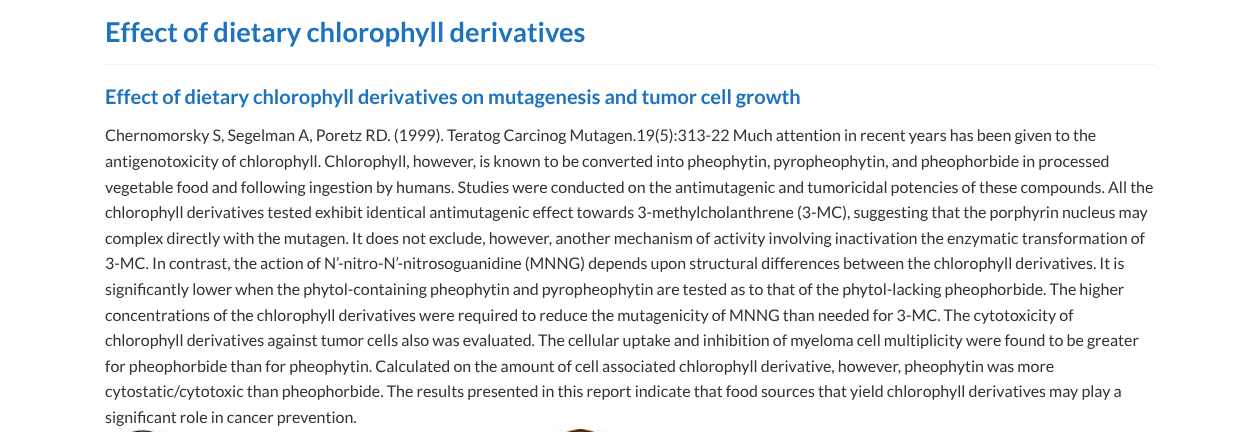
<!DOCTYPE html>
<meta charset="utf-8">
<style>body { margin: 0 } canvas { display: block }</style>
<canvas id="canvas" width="1260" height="432"></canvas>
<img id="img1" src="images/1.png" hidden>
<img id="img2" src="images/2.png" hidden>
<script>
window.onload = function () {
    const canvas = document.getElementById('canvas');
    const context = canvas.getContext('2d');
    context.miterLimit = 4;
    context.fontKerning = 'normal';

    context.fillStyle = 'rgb(255, 255, 255)';
    context.fillRect(0, 0, 1260, 432);
    context.fillStyle = 'rgb(242, 242, 242)';
    context.fillRect(105, 64, 1050, 1);
    context.drawImage(document.getElementById('img1'), 122, 429, 47, 3);
    context.drawImage(document.getElementById('img2'), 551, 429, 56, 3);
    context.font = 'bold 27.25px Lato';
    context.fillStyle = 'rgb(30, 115, 190)';
    context.fillText('Effect of dietary chlorophyll derivatives', 105, 42);
    context.font = 'bold 20px Lato';
    context.fillText('Effect of dietary chlorophyll derivatives on mutagenesis and tumor cell growth', 105, 104);
    context.font = '16px Lato';
    context.fillStyle = 'rgb(51, 51, 51)';
    context.fillText('Chernomorsky S, Segelman A, Poretz RD. (1999). Teratog Carcinog Mutagen.19(5):313-22 Much attention in recent years has been given to the', 105, 141);
    context.fillText('antigenotoxicity of chlorophyll. Chlorophyll, however, is known to be converted into pheophytin, pyropheophytin, and pheophorbide in processed', 105, 167);
    context.fillText('vegetable food and following ingestion by humans. Studies were conducted on the antimutagenic and tumoricidal potencies of these compounds. All the', 105, 193);
    context.fillText('chlorophyll derivatives tested exhibit identical antimutagenic effect towards 3-methylcholanthrene (3-MC), suggesting that the porphyrin nucleus may', 105, 218);
    context.fillText('complex directly with the mutagen. It does not exclude, however, another mechanism of activity involving inactivation the enzymatic transformation of', 105, 244);
    context.fillText('3-MC. In contrast, the action of N’-nitro-N’-nitrosoguanidine (MNNG) depends upon structural differences between the chlorophyll derivatives. It is', 105, 269);
    context.fillText('significantly lower when the phytol-containing pheophytin and pyropheophytin are tested as to that of the phytol-lacking pheophorbide. The higher', 105, 295);
    context.fillText('concentrations of the chlorophyll derivatives were required to reduce the mutagenicity of MNNG than needed for 3-MC. The cytotoxicity of', 105, 321);
    context.fillText('chlorophyll derivatives against tumor cells also was evaluated. The cellular uptake and inhibition of myeloma cell multiplicity were found to be greater', 105, 346);
    context.fillText('for pheophorbide than for pheophytin. Calculated on the amount of cell associated chlorophyll derivative, however, pheophytin was more', 105, 372);
    context.fillText('cytostatic/cytotoxic than pheophorbide. The results presented in this report indicate that food sources that yield chlorophyll derivatives may play a', 105, 397);
    context.fillText('significant role in cancer prevention.', 105, 423);
};
</script>
